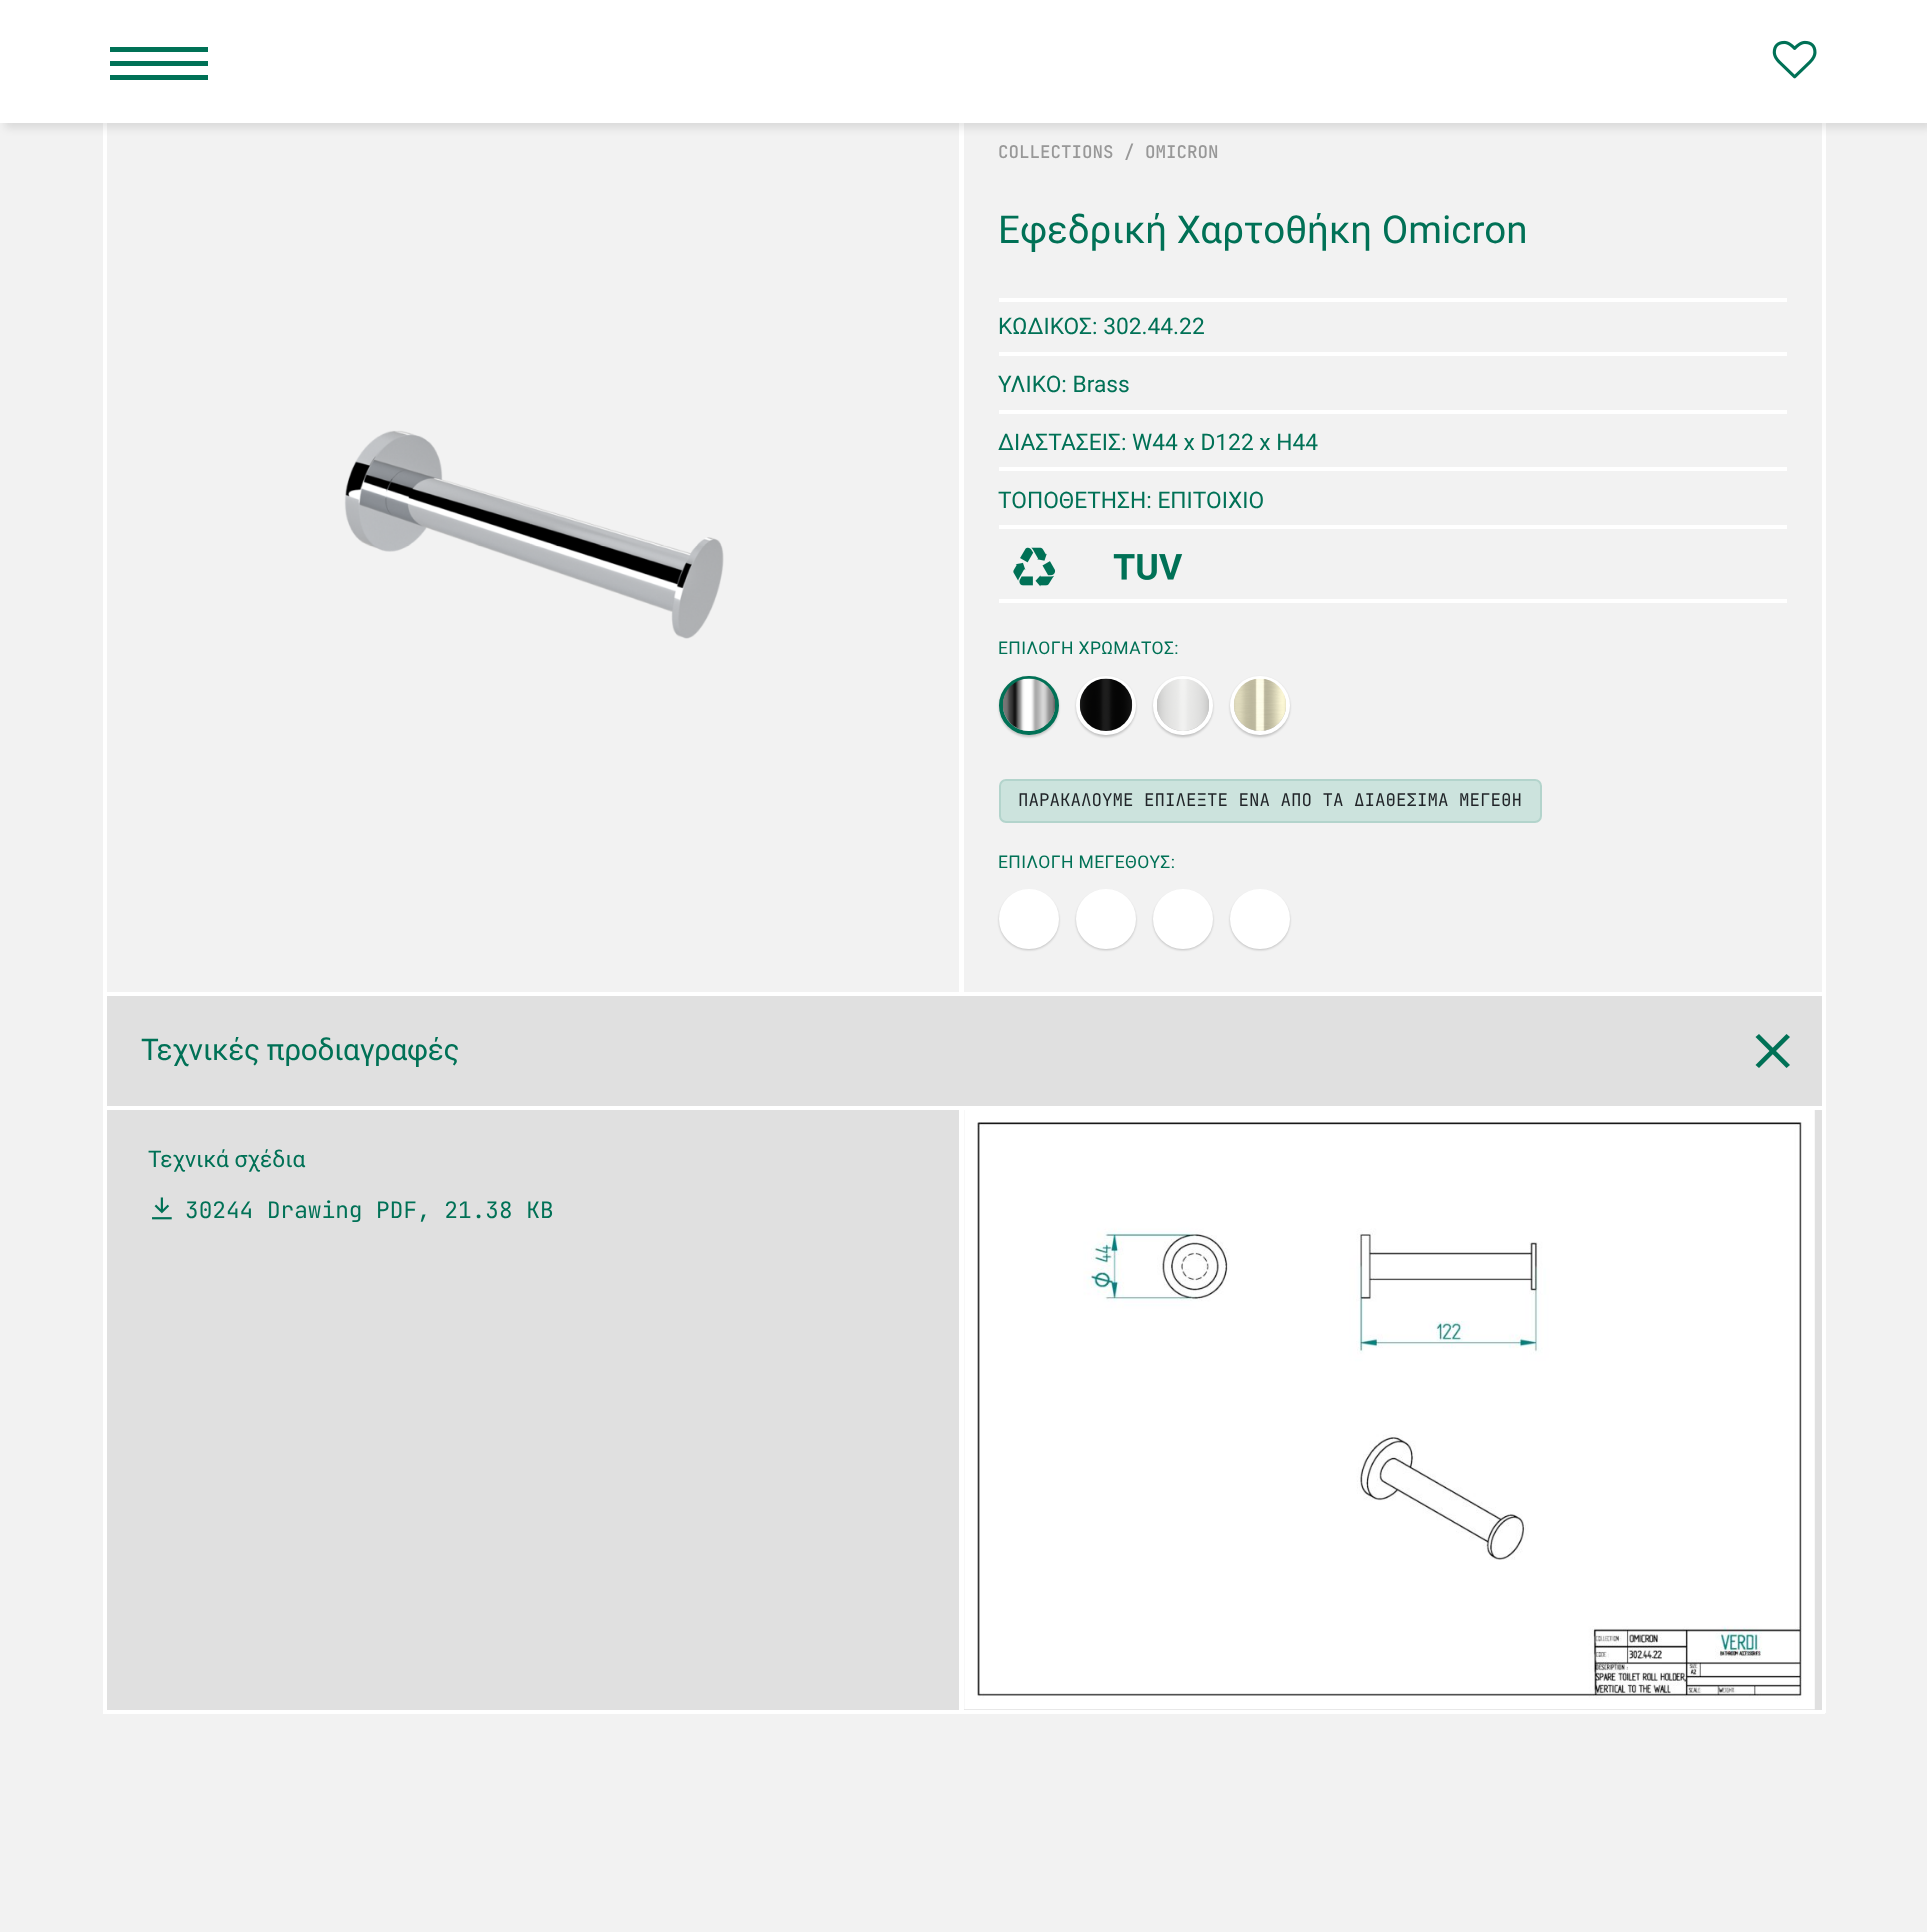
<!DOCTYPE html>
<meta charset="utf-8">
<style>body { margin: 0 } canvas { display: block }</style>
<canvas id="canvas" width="1932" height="1932"></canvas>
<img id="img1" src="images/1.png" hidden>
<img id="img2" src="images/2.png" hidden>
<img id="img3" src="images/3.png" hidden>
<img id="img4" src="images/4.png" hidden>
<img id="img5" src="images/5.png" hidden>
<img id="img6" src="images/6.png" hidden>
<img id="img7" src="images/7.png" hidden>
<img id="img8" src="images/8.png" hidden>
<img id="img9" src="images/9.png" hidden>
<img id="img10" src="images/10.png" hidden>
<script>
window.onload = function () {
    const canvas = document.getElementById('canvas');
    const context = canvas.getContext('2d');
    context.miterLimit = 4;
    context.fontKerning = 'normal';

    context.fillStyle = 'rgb(255, 255, 255)';
    context.fillRect(0, 0, 1932, 1932);
    context.fillStyle = 'rgb(242, 242, 242)';
    context.fillRect(0, 123, 1927, 1809);
    context.fillStyle = 'rgb(255, 255, 255)';
    context.fillRect(1822, 123, 4, 1590);
    context.fillRect(103, 992, 1722, 4);
    context.fillRect(103, 123, 4, 873);
    context.fillRect(959, 123, 5, 869);
    context.save();
    context.beginPath();
    context.rect(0, 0, 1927, 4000);
    context.clip();
    context.fillStyle = 'rgba(0, 0, 0, 0.1)';
    context.filter = 'blur(4.5px)';
    context.beginPath();
    context.rect(5, 5, 1927, 123);
    context.fill();
    context.filter = 'none';
    context.restore();
    context.fillRect(0, 0, 1927, 123);
    context.fillStyle = 'rgb(0, 113, 86)';
    context.fillRect(110, 47, 98, 5);
    context.fillRect(110, 61, 98, 5);
    context.fillRect(110, 75, 98, 5);
    context.drawImage(document.getElementById('img1'), 1772, 40, 45, 39);
    context.drawImage(document.getElementById('img2'), 344, 430, 380, 209);
    context.fillStyle = 'rgb(255, 255, 255)';
    context.fillRect(999, 298, 788, 4);
    context.fillRect(999, 352, 788, 4);
    context.fillRect(999, 410, 788, 4);
    context.fillRect(999, 467, 788, 4);
    context.fillRect(999, 525, 788, 4);
    context.drawImage(document.getElementById('img3'), 1013, 547, 43, 40);
    context.drawImage(document.getElementById('img4'), 1113, 554, 70, 26);
    context.fillRect(999, 599, 788, 4);
    context.fillStyle = 'rgba(0, 0, 0, 0.2)';
    context.filter = 'blur(1px)';
    context.beginPath();
    context.roundRect(999, 677, 60, 60, 30);
    context.fill();
    context.filter = 'none';
    context.beginPath();
    context.roundRect(1001, 678, 56, 55, 27.5);
    context.strokeStyle = 'rgb(0, 113, 86)';
    context.lineWidth = 4;
    context.stroke();
    context.drawImage(document.getElementById('img5'), 1002, 678, 54, 53);
    context.filter = 'blur(1px)';
    context.beginPath();
    context.roundRect(1076, 677, 60, 60, 30);
    context.fill();
    context.filter = 'none';
    context.beginPath();
    context.roundRect(1078, 678, 56, 55, 27.5);
    context.strokeStyle = 'rgb(255, 255, 255)';
    context.stroke();
    context.drawImage(document.getElementById('img6'), 1079, 678, 54, 53);
    context.filter = 'blur(1px)';
    context.beginPath();
    context.roundRect(1153, 677, 60, 60, 30);
    context.fill();
    context.filter = 'none';
    context.beginPath();
    context.roundRect(1155, 678, 56, 55, 27.5);
    context.stroke();
    context.drawImage(document.getElementById('img7'), 1157, 679, 52, 52);
    context.filter = 'blur(1px)';
    context.beginPath();
    context.roundRect(1230, 677, 60, 60, 30);
    context.fill();
    context.filter = 'none';
    context.beginPath();
    context.roundRect(1232, 678, 56, 55, 27.5);
    context.stroke();
    context.drawImage(document.getElementById('img8'), 1233, 678, 53, 53);
    context.fillStyle = 'rgb(204, 227, 221)';
    context.beginPath();
    context.roundRect(1000, 780, 541, 42, 6);
    context.fill();
    context.strokeStyle = 'rgb(179, 212, 204)';
    context.lineWidth = 2;
    context.stroke();
    context.fillStyle = 'rgba(0, 0, 0, 0.2)';
    context.filter = 'blur(1px)';
    context.beginPath();
    context.roundRect(999, 891, 60, 59, 29.5);
    context.fill();
    context.filter = 'none';
    context.fillStyle = 'rgb(255, 255, 255)';
    context.beginPath();
    context.arc(1029, 919, 28, 0, 2 * Math.PI);
    context.fill();
    context.strokeStyle = 'rgb(255, 255, 255)';
    context.lineWidth = 4;
    context.stroke();
    context.fillStyle = 'rgba(0, 0, 0, 0.2)';
    context.filter = 'blur(1px)';
    context.beginPath();
    context.roundRect(1076, 891, 60, 59, 29.5);
    context.fill();
    context.filter = 'none';
    context.fillStyle = 'rgb(255, 255, 255)';
    context.beginPath();
    context.arc(1106, 919, 28, 0, 2 * Math.PI);
    context.fill();
    context.stroke();
    context.fillStyle = 'rgba(0, 0, 0, 0.2)';
    context.filter = 'blur(1px)';
    context.beginPath();
    context.roundRect(1153, 891, 60, 59, 29.5);
    context.fill();
    context.filter = 'none';
    context.fillStyle = 'rgb(255, 255, 255)';
    context.beginPath();
    context.arc(1183, 919, 28, 0, 2 * Math.PI);
    context.fill();
    context.stroke();
    context.fillStyle = 'rgba(0, 0, 0, 0.2)';
    context.filter = 'blur(1px)';
    context.beginPath();
    context.roundRect(1230, 891, 60, 59, 29.5);
    context.fill();
    context.filter = 'none';
    context.fillStyle = 'rgb(255, 255, 255)';
    context.beginPath();
    context.arc(1260, 919, 28, 0, 2 * Math.PI);
    context.fill();
    context.stroke();
    context.fillStyle = 'rgb(224, 224, 224)';
    context.fillRect(107, 996, 1715, 714);
    context.fillStyle = 'rgb(255, 255, 255)';
    context.fillRect(103, 1710, 1722, 4);
    context.fillRect(103, 996, 4, 717);
    context.fillStyle = 'rgb(0, 113, 86)';
    context.beginPath();
    context.moveTo(1759, 1034);
    context.lineTo(1790, 1065);
    context.lineTo(1786.5, 1068);
    context.lineTo(1755.5, 1037);
    context.closePath();
    context.fill();
    context.beginPath();
    context.moveTo(1755.5, 1065);
    context.lineTo(1786.5, 1034);
    context.lineTo(1790, 1037);
    context.lineTo(1759, 1068);
    context.closePath();
    context.fill();
    context.fillStyle = 'rgb(255, 255, 255)';
    context.fillRect(107, 1106, 1715, 4);
    context.fillRect(959, 1110, 5, 600);
    context.drawImage(document.getElementById('img9'), 152, 1197, 20, 23);
    context.drawImage(document.getElementById('img10'), 964, 1110, 851, 600);
    context.font = '500 17.5px JetBrains Mono';
    context.fillStyle = 'rgb(152, 152, 152)';
    context.fillText('COLLECTIONS / OMICRON', 998, 158);
    context.font = '38.5px Roboto';
    context.fillStyle = 'rgb(0, 113, 86)';
    context.fillText('Εφεδρική Χαρτοθήκη Omicron', 998, 243);
    context.font = '22.75px Roboto';
    context.fillText('ΚΩΔΙΚΟΣ: 302.44.22', 998, 334);
    context.fillText('ΥΛΙΚΟ: Brass', 998, 392);
    context.fillText('ΔΙΑΣΤΑΣΕΙΣ: W44 x D122 x H44', 998, 450);
    context.fillText('ΤΟΠΟΘΕΤΗΣΗ: ΕΠΙΤΟΙΧΙΟ', 998, 508);
    context.letterSpacing = '0.4px';
    context.font = '17.5px Roboto';
    context.fillText('ΕΠΙΛΟΓΗ ΧΡΩΜΑΤΟΣ:', 998, 654);
    context.letterSpacing = '0px';
    context.font = '17.5px JetBrains Mono';
    context.fillStyle = 'rgb(33, 37, 41)';
    context.fillText('ΠΑΡΑΚΑΛΟΥΜΕ ΕΠΙΛΕΞΤΕ ΕΝΑ ΑΠΟ ΤΑ ΔΙΑΘΕΣΙΜΑ ΜΕΓΕΘΗ', 1018, 806);
    context.letterSpacing = '0.4px';
    context.font = '17.5px Roboto';
    context.fillStyle = 'rgb(0, 113, 86)';
    context.fillText('ΕΠΙΛΟΓΗ ΜΕΓΕΘΟΥΣ:', 998, 868);
    context.letterSpacing = '-0.3px';
    context.font = '29.75px Roboto';
    context.fillText('Τεχνικές προδιαγραφές', 141, 1060);
    context.letterSpacing = '0px';
    context.font = '22.75px Roboto';
    context.fillText('Τεχνικά σχέδια', 148, 1167);
    context.font = '22.75px JetBrains Mono';
    context.fillText('30244 Drawing PDF, 21.38 KB', 185, 1218);
};
</script>
